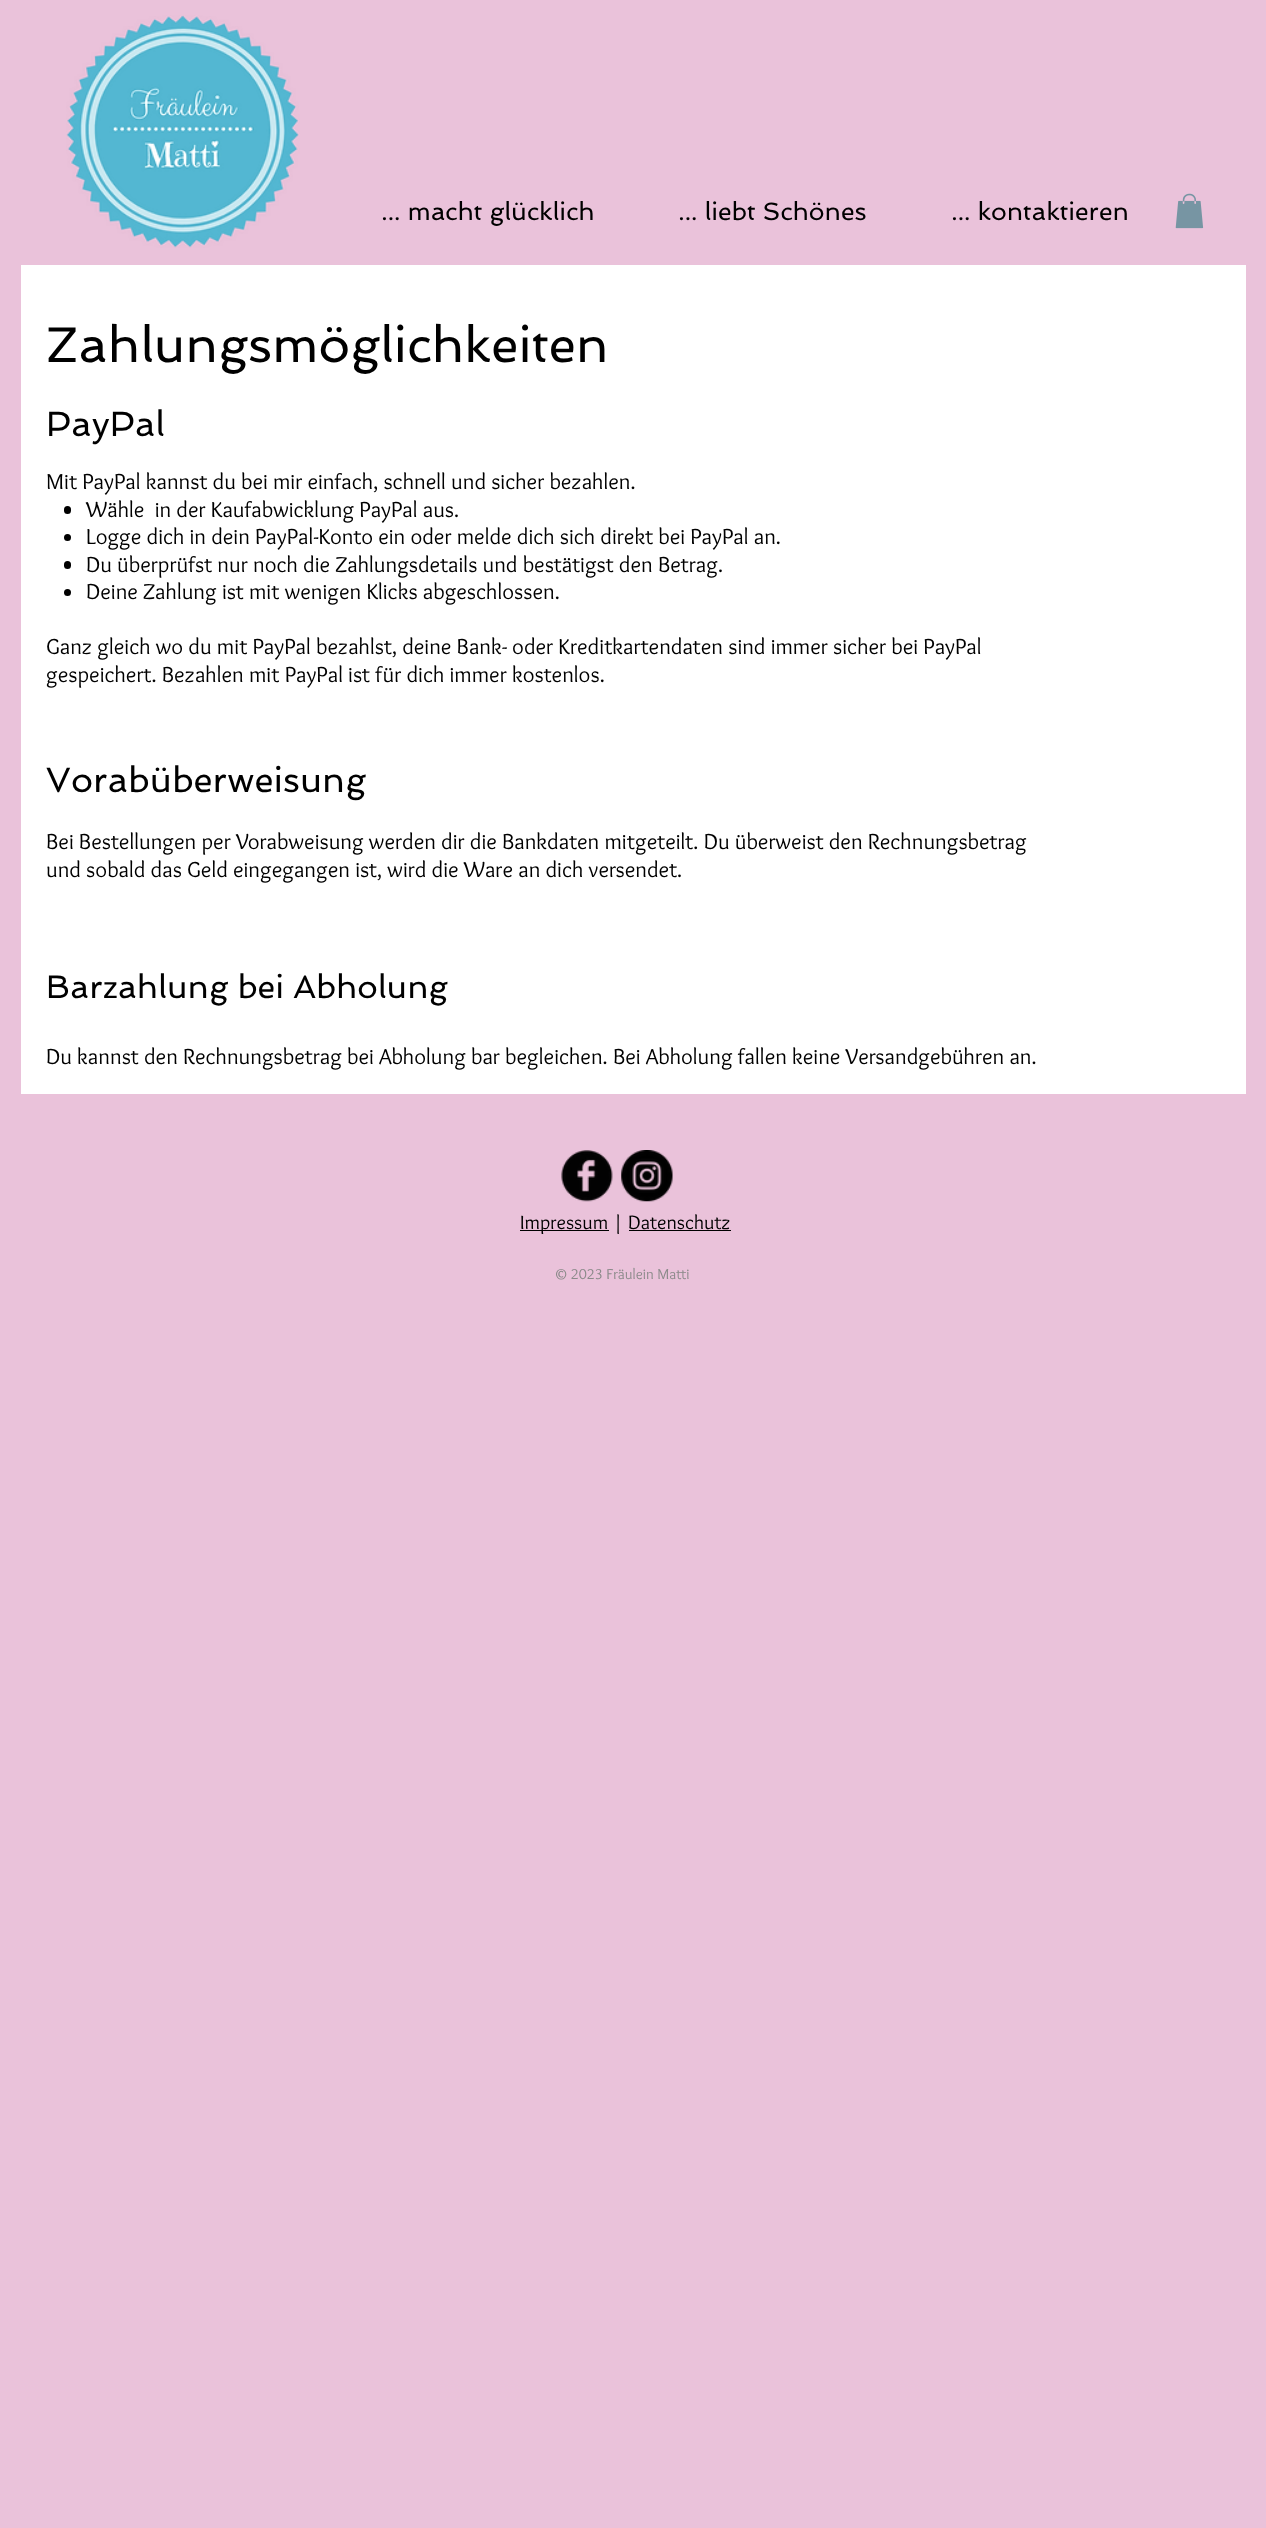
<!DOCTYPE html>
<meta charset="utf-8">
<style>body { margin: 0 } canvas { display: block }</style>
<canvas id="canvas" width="1266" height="2528"></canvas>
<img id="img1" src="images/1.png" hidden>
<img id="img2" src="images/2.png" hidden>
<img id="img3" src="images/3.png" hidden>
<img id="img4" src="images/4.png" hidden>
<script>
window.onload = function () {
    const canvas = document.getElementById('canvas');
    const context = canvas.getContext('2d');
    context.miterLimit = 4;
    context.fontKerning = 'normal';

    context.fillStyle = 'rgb(234, 194, 218)';
    context.fillRect(0, 0, 1266, 2528);
    context.drawImage(document.getElementById('img1'), 66, 15, 234, 233);
    context.drawImage(document.getElementById('img2'), 1175, 193, 29, 36);
    context.fillStyle = 'rgb(255, 255, 255)';
    context.fillRect(21, 265, 1225, 829);
    context.fillStyle = 'rgb(0, 0, 0)';
    context.beginPath();
    context.roundRect(64, 506, 7, 8, 3.5);
    context.fill();
    context.beginPath();
    context.arc(67.5, 537.5, 3.5, 0, 2 * Math.PI);
    context.fill();
    context.beginPath();
    context.roundRect(64, 561, 7, 8, 3.5);
    context.fill();
    context.beginPath();
    context.arc(67.5, 592.5, 3.5, 0, 2 * Math.PI);
    context.fill();
    context.drawImage(document.getElementById('img3'), 561, 1150, 52, 52);
    context.drawImage(document.getElementById('img4'), 621, 1150, 52, 52);
    context.fillRect(520, 1230, 89, 1);
    context.fillRect(629, 1230, 102, 1);
    context.font = '25px Spinnaker';
    context.fillText('... macht glücklich', 381, 220);
    context.fillText('... liebt Schönes', 678, 220);
    context.fillText('... kontaktieren', 951, 220);
    context.font = '50px Spinnaker';
    context.fillText('Zahlungsmöglichkeiten', 46, 362);
    context.font = '35px Spinnaker';
    context.fillText('PayPal', 46, 436);
    context.font = '22.5px Overlock';
    context.fillText('Mit PayPal kannst du bei mir einfach, schnell und sicher bezahlen.', 46, 489);
    context.fillText('Wähle  in der Kaufabwicklung PayPal aus.', 86, 517);
    context.fillText('Logge dich in dein PayPal-Konto ein oder melde dich sich direkt bei PayPal an.', 86, 544);
    context.fillText('Du überprüfst nur noch die Zahlungsdetails und bestätigst den Betrag.', 86, 572);
    context.fillText('Deine Zahlung ist mit wenigen Klicks abgeschlossen.', 86, 599);
    context.fillText('Ganz gleich wo du mit PayPal bezahlst, deine Bank- oder Kreditkartendaten sind immer sicher bei PayPal', 46, 654);
    context.fillText('gespeichert. Bezahlen mit PayPal ist für dich immer kostenlos.', 46, 682);
    context.font = '35px Spinnaker';
    context.fillText('Vorabüberweisung', 46, 792);
    context.font = '22.5px Overlock';
    context.fillText('Bei Bestellungen per Vorabweisung werden dir die Bankdaten mitgeteilt. Du überweist den Rechnungsbetrag', 46, 849);
    context.fillText('und sobald das Geld eingegangen ist, wird die Ware an dich versendet.', 46, 877);
    context.font = '32.5px Spinnaker';
    context.fillText('Barzahlung bei Abholung', 46, 998);
    context.font = '22.5px Overlock';
    context.fillText('Du kannst den Rechnungsbetrag bei Abholung bar begleichen. Bei Abholung fallen keine Versandgebühren an.', 46, 1064);
    context.font = '20px Overlock';
    context.fillText('Impressum | Datenschutz', 520, 1229);
    context.font = '15px Overlock';
    context.fillStyle = 'rgb(139, 138, 138)';
    context.fillText('© 2023 Fräulein Matti', 554, 1279);
};
</script>
